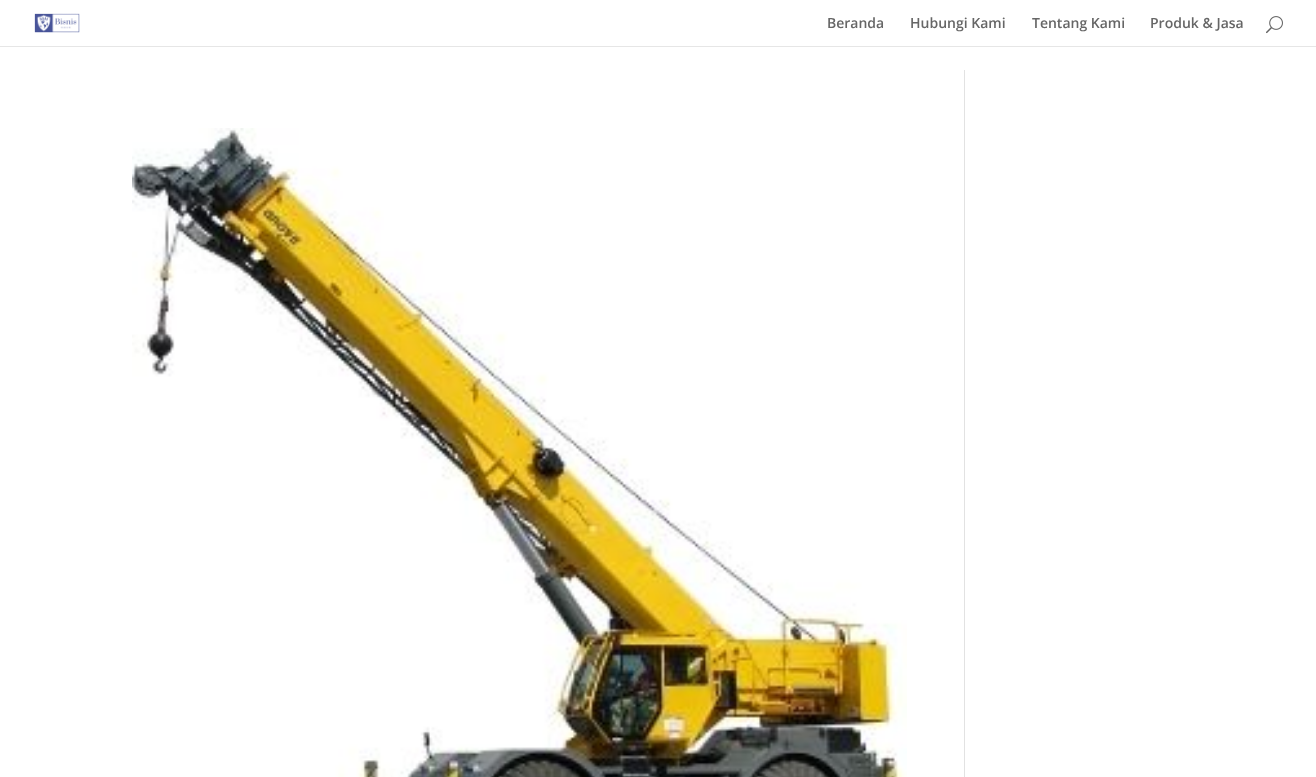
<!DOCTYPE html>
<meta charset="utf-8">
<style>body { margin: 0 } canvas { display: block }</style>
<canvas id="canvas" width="1316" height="777"></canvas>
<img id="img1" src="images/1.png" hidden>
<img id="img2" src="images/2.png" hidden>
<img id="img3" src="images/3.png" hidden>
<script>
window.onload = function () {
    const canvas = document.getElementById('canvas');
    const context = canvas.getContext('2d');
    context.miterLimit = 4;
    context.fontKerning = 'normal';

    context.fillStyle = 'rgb(255, 255, 255)';
    context.fillRect(0, 0, 1316, 777);
    context.fillStyle = 'rgb(230, 230, 230)';
    context.fillRect(0, 46, 1316, 1);
    context.drawImage(document.getElementById('img1'), 34, 13, 46, 20);
    context.drawImage(document.getElementById('img2'), 1266, 16, 17, 18);
    context.drawImage(document.getElementById('img3'), 132, 128, 775, 649);
    context.fillStyle = 'rgb(226, 226, 226)';
    context.fillRect(964, 70, 1, 707);
    context.font = '600 14px Open Sans';
    context.fillStyle = 'rgb(102, 102, 102)';
    context.fillText('Beranda', 827, 28);
    context.fillText('Hubungi Kami', 910, 28);
    context.fillText('Tentang Kami', 1032, 28);
    context.fillText('Produk & Jasa', 1150, 28);
};
</script>
